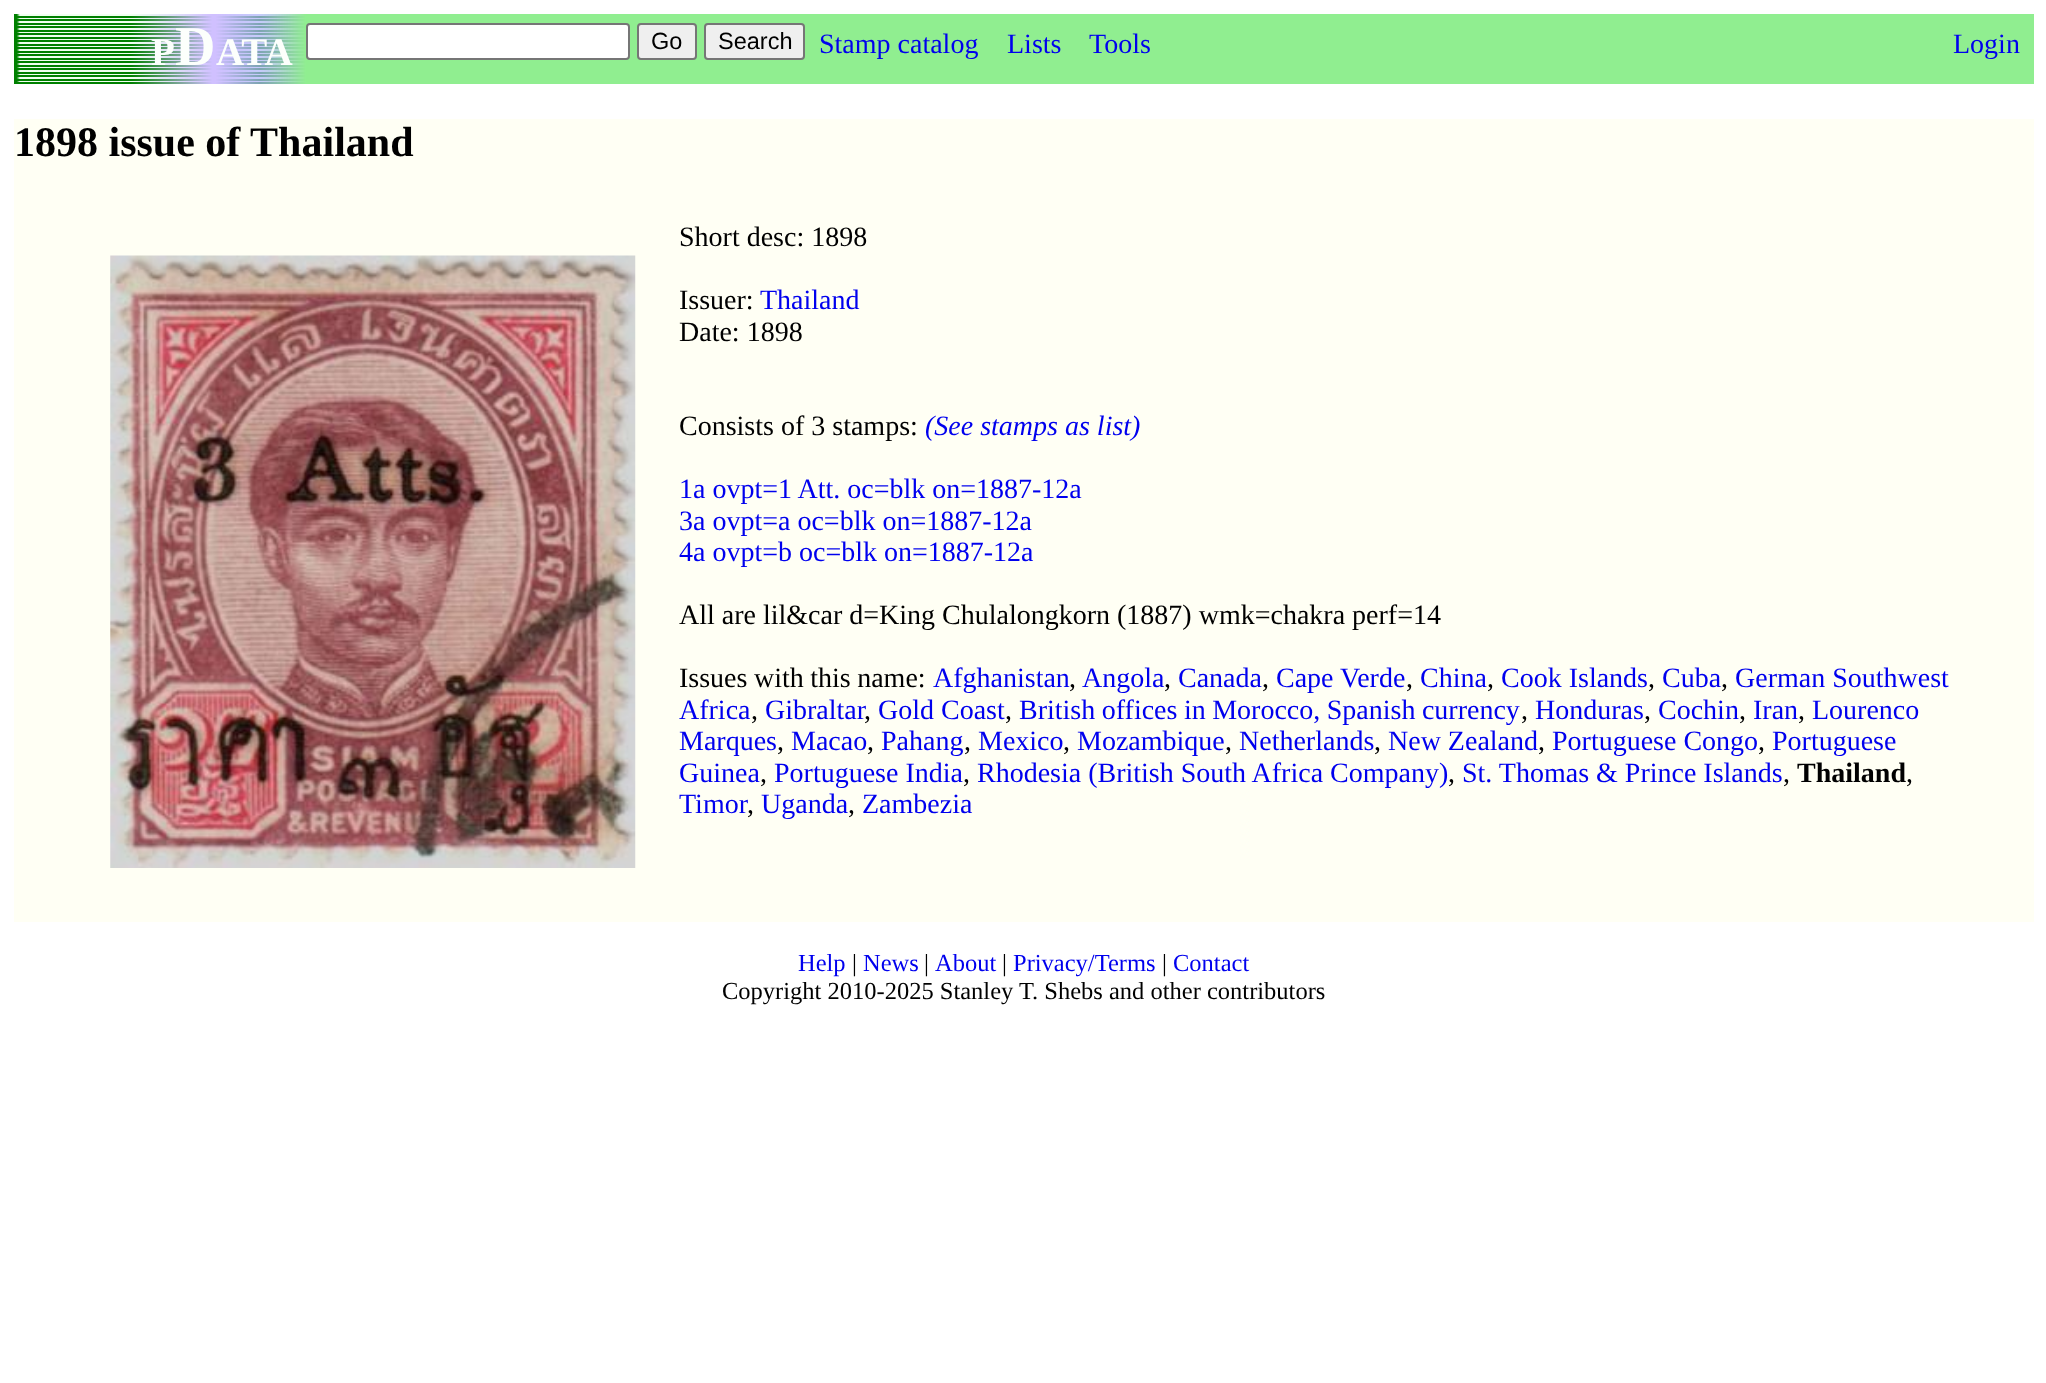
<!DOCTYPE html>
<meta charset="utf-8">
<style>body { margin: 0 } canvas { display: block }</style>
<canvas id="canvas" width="2046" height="1383"></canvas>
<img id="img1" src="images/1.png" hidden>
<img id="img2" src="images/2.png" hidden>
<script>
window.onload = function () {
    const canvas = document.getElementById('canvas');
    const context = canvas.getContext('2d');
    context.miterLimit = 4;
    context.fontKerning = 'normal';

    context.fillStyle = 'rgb(255, 255, 255)';
    context.fillRect(0, 0, 2046, 1383);
    context.fillStyle = 'rgb(144, 238, 144)';
    context.fillRect(306, 14, 1728, 70);
    context.drawImage(document.getElementById('img1'), 14, 14, 292, 70);
    context.fillStyle = 'rgb(255, 255, 255)';
    context.beginPath();
    context.roundRect(307, 24, 322, 35, 3);
    context.fill();
    context.strokeStyle = 'rgb(118, 118, 118)';
    context.lineWidth = 2;
    context.stroke();
    context.fillStyle = 'rgb(239, 239, 239)';
    context.beginPath();
    context.roundRect(638, 24, 58, 35, 3);
    context.fill();
    context.stroke();
    context.beginPath();
    context.roundRect(705, 24, 99, 35, 3);
    context.fill();
    context.stroke();
    context.fillStyle = 'rgb(255, 255, 244)';
    context.fillRect(14, 119, 2020, 803);
    context.drawImage(document.getElementById('img2'), 110, 255, 526, 613);
    context.font = 'bold 39px Liberation Serif';
    context.fillStyle = 'rgb(252, 255, 252)';
    context.fillText('P', 151, 65);
    context.font = 'bold 56px Liberation Serif';
    context.fillText('D', 175, 65);
    context.font = 'bold 39px Liberation Serif';
    context.fillText('ATA', 216, 65);
    context.font = '23.5px Liberation Sans';
    context.fillStyle = 'rgb(0, 0, 0)';
    context.fillText('Go', 651, 49);
    context.fillText('Search', 718, 49);
    context.font = '28px Liberation Serif';
    context.fillStyle = 'rgb(0, 0, 238)';
    context.fillText('Stamp catalog', 819, 53);
    context.fillText('Lists', 1007, 53);
    context.fillText('Tools', 1089, 53);
    context.fillText('Login', 1953, 53);
    context.font = 'bold 42px Liberation Serif';
    context.fillStyle = 'rgb(0, 0, 0)';
    context.fillText('1898 issue of Thailand', 14, 156);
    context.font = '28px Liberation Serif';
    context.fillText('Short desc: 1898', 679, 246);
    context.fillText('Issuer:', 679, 309);
    context.fillStyle = 'rgb(0, 0, 238)';
    context.fillText('Thailand', 760, 309);
    context.fillStyle = 'rgb(0, 0, 0)';
    context.fillText('Date: 1898', 679, 341);
    context.fillText('Consists of 3 stamps:', 679, 435);
    context.font = 'italic 28px Liberation Serif';
    context.fillStyle = 'rgb(0, 0, 238)';
    context.fillText('(See stamps as list)', 925, 435);
    context.font = '28px Liberation Serif';
    context.fillText('1a ovpt=1 Att. oc=blk on=1887-12a', 679, 498);
    context.fillText('3a ovpt=a oc=blk on=1887-12a', 679, 530);
    context.fillText('4a ovpt=b oc=blk on=1887-12a', 679, 561);
    context.fillStyle = 'rgb(0, 0, 0)';
    context.fillText('All are lil&car d=King Chulalongkorn (1887) wmk=chakra perf=14', 679, 624);
    context.wordSpacing = '-0.5px';
    context.fillText('Issues with this name:', 679, 687);
    context.wordSpacing = '0px';
    context.fillStyle = 'rgb(0, 0, 238)';
    context.fillText('Afghanistan', 933, 687);
    context.fillStyle = 'rgb(0, 0, 0)';
    context.fillText(',', 1069, 687);
    context.fillStyle = 'rgb(0, 0, 238)';
    context.fillText('Angola', 1082, 687);
    context.fillStyle = 'rgb(0, 0, 0)';
    context.fillText(',', 1164, 687);
    context.fillStyle = 'rgb(0, 0, 238)';
    context.fillText('Canada', 1178, 687);
    context.fillStyle = 'rgb(0, 0, 0)';
    context.fillText(',', 1262, 687);
    context.fillStyle = 'rgb(0, 0, 238)';
    context.fillText('Cape Verde', 1276, 687);
    context.fillStyle = 'rgb(0, 0, 0)';
    context.fillText(',', 1406, 687);
    context.fillStyle = 'rgb(0, 0, 238)';
    context.fillText('China', 1420, 687);
    context.fillStyle = 'rgb(0, 0, 0)';
    context.fillText(',', 1487, 687);
    context.fillStyle = 'rgb(0, 0, 238)';
    context.fillText('Cook Islands', 1501, 687);
    context.fillStyle = 'rgb(0, 0, 0)';
    context.fillText(',', 1648, 687);
    context.fillStyle = 'rgb(0, 0, 238)';
    context.fillText('Cuba', 1662, 687);
    context.fillStyle = 'rgb(0, 0, 0)';
    context.fillText(',', 1721, 687);
    context.fillStyle = 'rgb(0, 0, 238)';
    context.fillText('German Southwest', 1735, 687);
    context.fillText('Africa', 679, 719);
    context.fillStyle = 'rgb(0, 0, 0)';
    context.fillText(',', 751, 719);
    context.fillStyle = 'rgb(0, 0, 238)';
    context.fillText('Gibraltar', 765, 719);
    context.fillStyle = 'rgb(0, 0, 0)';
    context.fillText(',', 864, 719);
    context.fillStyle = 'rgb(0, 0, 238)';
    context.fillText('Gold Coast', 878, 719);
    context.fillStyle = 'rgb(0, 0, 0)';
    context.fillText(',', 1005, 719);
    context.wordSpacing = '-0.5px';
    context.fillStyle = 'rgb(0, 0, 238)';
    context.fillText('British offices in Morocco, Spanish currency', 1019, 719);
    context.wordSpacing = '0px';
    context.fillStyle = 'rgb(0, 0, 0)';
    context.fillText(',', 1521, 719);
    context.fillStyle = 'rgb(0, 0, 238)';
    context.fillText('Honduras', 1535, 719);
    context.fillStyle = 'rgb(0, 0, 0)';
    context.fillText(',', 1644, 719);
    context.fillStyle = 'rgb(0, 0, 238)';
    context.fillText('Cochin', 1658, 719);
    context.fillStyle = 'rgb(0, 0, 0)';
    context.fillText(',', 1739, 719);
    context.fillStyle = 'rgb(0, 0, 238)';
    context.fillText('Iran', 1753, 719);
    context.fillStyle = 'rgb(0, 0, 0)';
    context.fillText(',', 1798, 719);
    context.fillStyle = 'rgb(0, 0, 238)';
    context.fillText('Lourenco', 1812, 719);
    context.fillText('Marques', 679, 750);
    context.fillStyle = 'rgb(0, 0, 0)';
    context.fillText(',', 777, 750);
    context.fillStyle = 'rgb(0, 0, 238)';
    context.fillText('Macao', 791, 750);
    context.fillStyle = 'rgb(0, 0, 0)';
    context.fillText(',', 867, 750);
    context.fillStyle = 'rgb(0, 0, 238)';
    context.fillText('Pahang', 881, 750);
    context.fillStyle = 'rgb(0, 0, 0)';
    context.fillText(',', 964, 750);
    context.fillStyle = 'rgb(0, 0, 238)';
    context.fillText('Mexico', 978, 750);
    context.fillStyle = 'rgb(0, 0, 0)';
    context.fillText(',', 1063, 750);
    context.fillStyle = 'rgb(0, 0, 238)';
    context.fillText('Mozambique', 1077, 750);
    context.fillStyle = 'rgb(0, 0, 0)';
    context.fillText(',', 1225, 750);
    context.fillStyle = 'rgb(0, 0, 238)';
    context.fillText('Netherlands', 1239, 750);
    context.fillStyle = 'rgb(0, 0, 0)';
    context.fillText(',', 1374, 750);
    context.fillStyle = 'rgb(0, 0, 238)';
    context.fillText('New Zealand', 1388, 750);
    context.fillStyle = 'rgb(0, 0, 0)';
    context.fillText(',', 1538, 750);
    context.fillStyle = 'rgb(0, 0, 238)';
    context.fillText('Portuguese Congo', 1552, 750);
    context.fillStyle = 'rgb(0, 0, 0)';
    context.fillText(',', 1758, 750);
    context.fillStyle = 'rgb(0, 0, 238)';
    context.fillText('Portuguese', 1772, 750);
    context.fillText('Guinea', 679, 782);
    context.fillStyle = 'rgb(0, 0, 0)';
    context.fillText(',', 760, 782);
    context.fillStyle = 'rgb(0, 0, 238)';
    context.fillText('Portuguese India', 774, 782);
    context.fillStyle = 'rgb(0, 0, 0)';
    context.fillText(',', 963, 782);
    context.fillStyle = 'rgb(0, 0, 238)';
    context.fillText('Rhodesia (British South Africa Company)', 977, 782);
    context.fillStyle = 'rgb(0, 0, 0)';
    context.fillText(',', 1448, 782);
    context.fillStyle = 'rgb(0, 0, 238)';
    context.fillText('St. Thomas & Prince Islands', 1462, 782);
    context.fillStyle = 'rgb(0, 0, 0)';
    context.fillText(',', 1783, 782);
    context.font = 'bold 28px Liberation Serif';
    context.fillText('Thailand', 1797, 782);
    context.font = '28px Liberation Serif';
    context.fillText(',', 1906, 782);
    context.fillStyle = 'rgb(0, 0, 238)';
    context.fillText('Timor', 679, 813);
    context.fillStyle = 'rgb(0, 0, 0)';
    context.fillText(',', 747, 813);
    context.fillStyle = 'rgb(0, 0, 238)';
    context.fillText('Uganda', 761, 813);
    context.fillStyle = 'rgb(0, 0, 0)';
    context.fillText(',', 848, 813);
    context.fillStyle = 'rgb(0, 0, 238)';
    context.fillText('Zambezia', 862, 813);
    context.font = '24.5px Liberation Serif';
    context.fillText('Help', 798, 971);
    context.fillStyle = 'rgb(0, 0, 0)';
    context.fillText('|', 852, 971);
    context.fillStyle = 'rgb(0, 0, 238)';
    context.fillText('News', 863, 971);
    context.fillStyle = 'rgb(0, 0, 0)';
    context.fillText('|', 924, 971);
    context.fillStyle = 'rgb(0, 0, 238)';
    context.fillText('About', 935, 971);
    context.fillStyle = 'rgb(0, 0, 0)';
    context.fillText('|', 1002, 971);
    context.fillStyle = 'rgb(0, 0, 238)';
    context.fillText('Privacy/Terms', 1013, 971);
    context.fillStyle = 'rgb(0, 0, 0)';
    context.fillText('|', 1162, 971);
    context.fillStyle = 'rgb(0, 0, 238)';
    context.fillText('Contact', 1173, 971);
    context.fillStyle = 'rgb(0, 0, 0)';
    context.fillText('Copyright 2010-2025 Stanley T. Shebs and other contributors', 722, 999);
};
</script>
